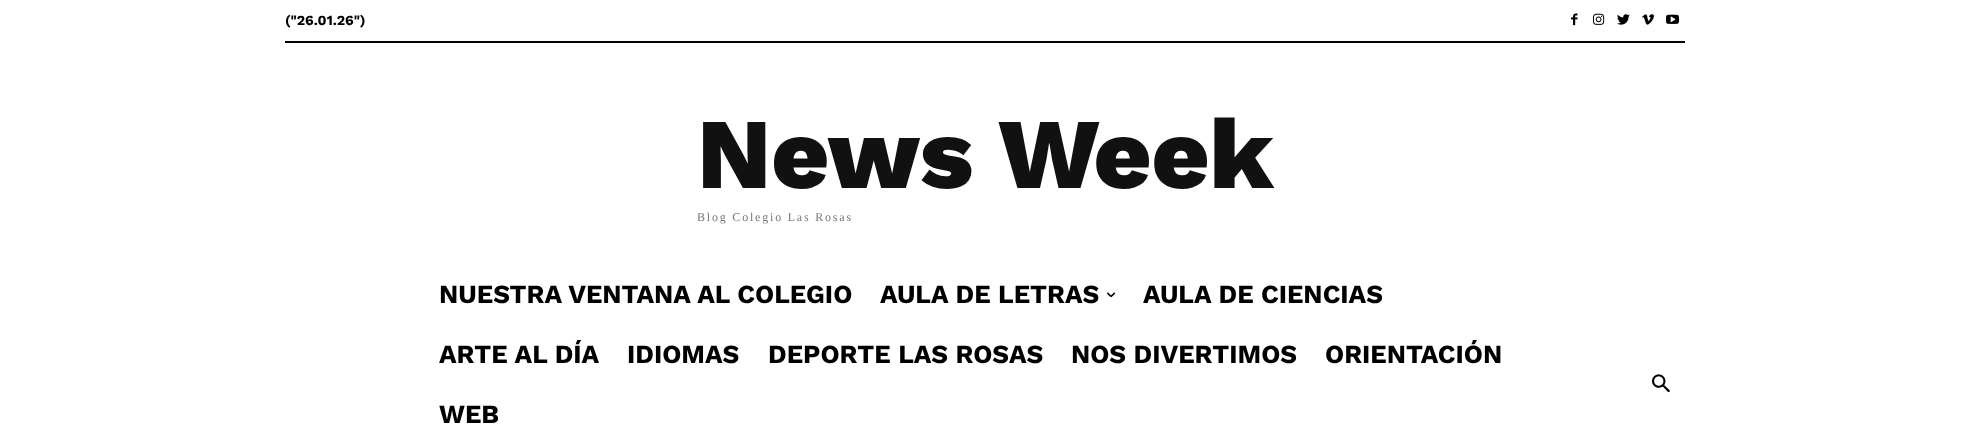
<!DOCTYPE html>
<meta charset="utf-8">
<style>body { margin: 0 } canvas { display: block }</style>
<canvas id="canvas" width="1970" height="447"></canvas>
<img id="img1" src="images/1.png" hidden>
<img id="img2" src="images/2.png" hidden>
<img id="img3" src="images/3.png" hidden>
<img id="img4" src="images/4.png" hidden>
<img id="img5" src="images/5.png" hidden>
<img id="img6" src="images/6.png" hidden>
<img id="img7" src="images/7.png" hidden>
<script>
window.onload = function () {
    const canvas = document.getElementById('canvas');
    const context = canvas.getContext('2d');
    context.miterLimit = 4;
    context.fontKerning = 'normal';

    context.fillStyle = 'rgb(255, 255, 255)';
    context.fillRect(0, 0, 1970, 447);
    context.drawImage(document.getElementById('img1'), 1571, 13, 7, 13);
    context.drawImage(document.getElementById('img2'), 1593, 13, 12, 12);
    context.drawImage(document.getElementById('img3'), 1617, 14, 13, 11);
    context.drawImage(document.getElementById('img4'), 1642, 14, 12, 11);
    context.drawImage(document.getElementById('img5'), 1666, 14, 13, 10);
    context.fillStyle = 'rgb(0, 0, 0)';
    context.fillRect(285, 41, 1400, 2);
    context.drawImage(document.getElementById('img6'), 1107, 292, 9, 6);
    context.drawImage(document.getElementById('img7'), 1652, 374, 18, 19);
    context.font = 'bold 14px Work Sans';
    context.fillText('("26.01.26")', 285, 25);
    context.font = '800 100px Work Sans';
    context.fillStyle = 'rgb(17, 17, 17)';
    context.fillText('News Week', 697, 188);
    context.letterSpacing = '1.8px';
    context.font = '12px Liberation Serif';
    context.fillStyle = 'rgb(119, 119, 119)';
    context.fillText('Blog Colegio Las Rosas', 697, 221);
    context.letterSpacing = '0px';
    context.font = 'bold 26px Work Sans';
    context.fillStyle = 'rgb(0, 0, 0)';
    context.fillText('NUESTRA VENTANA AL COLEGIO', 439, 303);
    context.fillText('AULA DE LETRAS', 880, 303);
    context.fillText('AULA DE CIENCIAS', 1143, 303);
    context.fillText('ARTE AL DÍA', 439, 363);
    context.fillText('IDIOMAS', 627, 363);
    context.fillText('DEPORTE LAS ROSAS', 768, 363);
    context.fillText('NOS DIVERTIMOS', 1071, 363);
    context.fillText('ORIENTACIÓN', 1325, 363);
    context.fillText('WEB', 439, 423);
};
</script>
